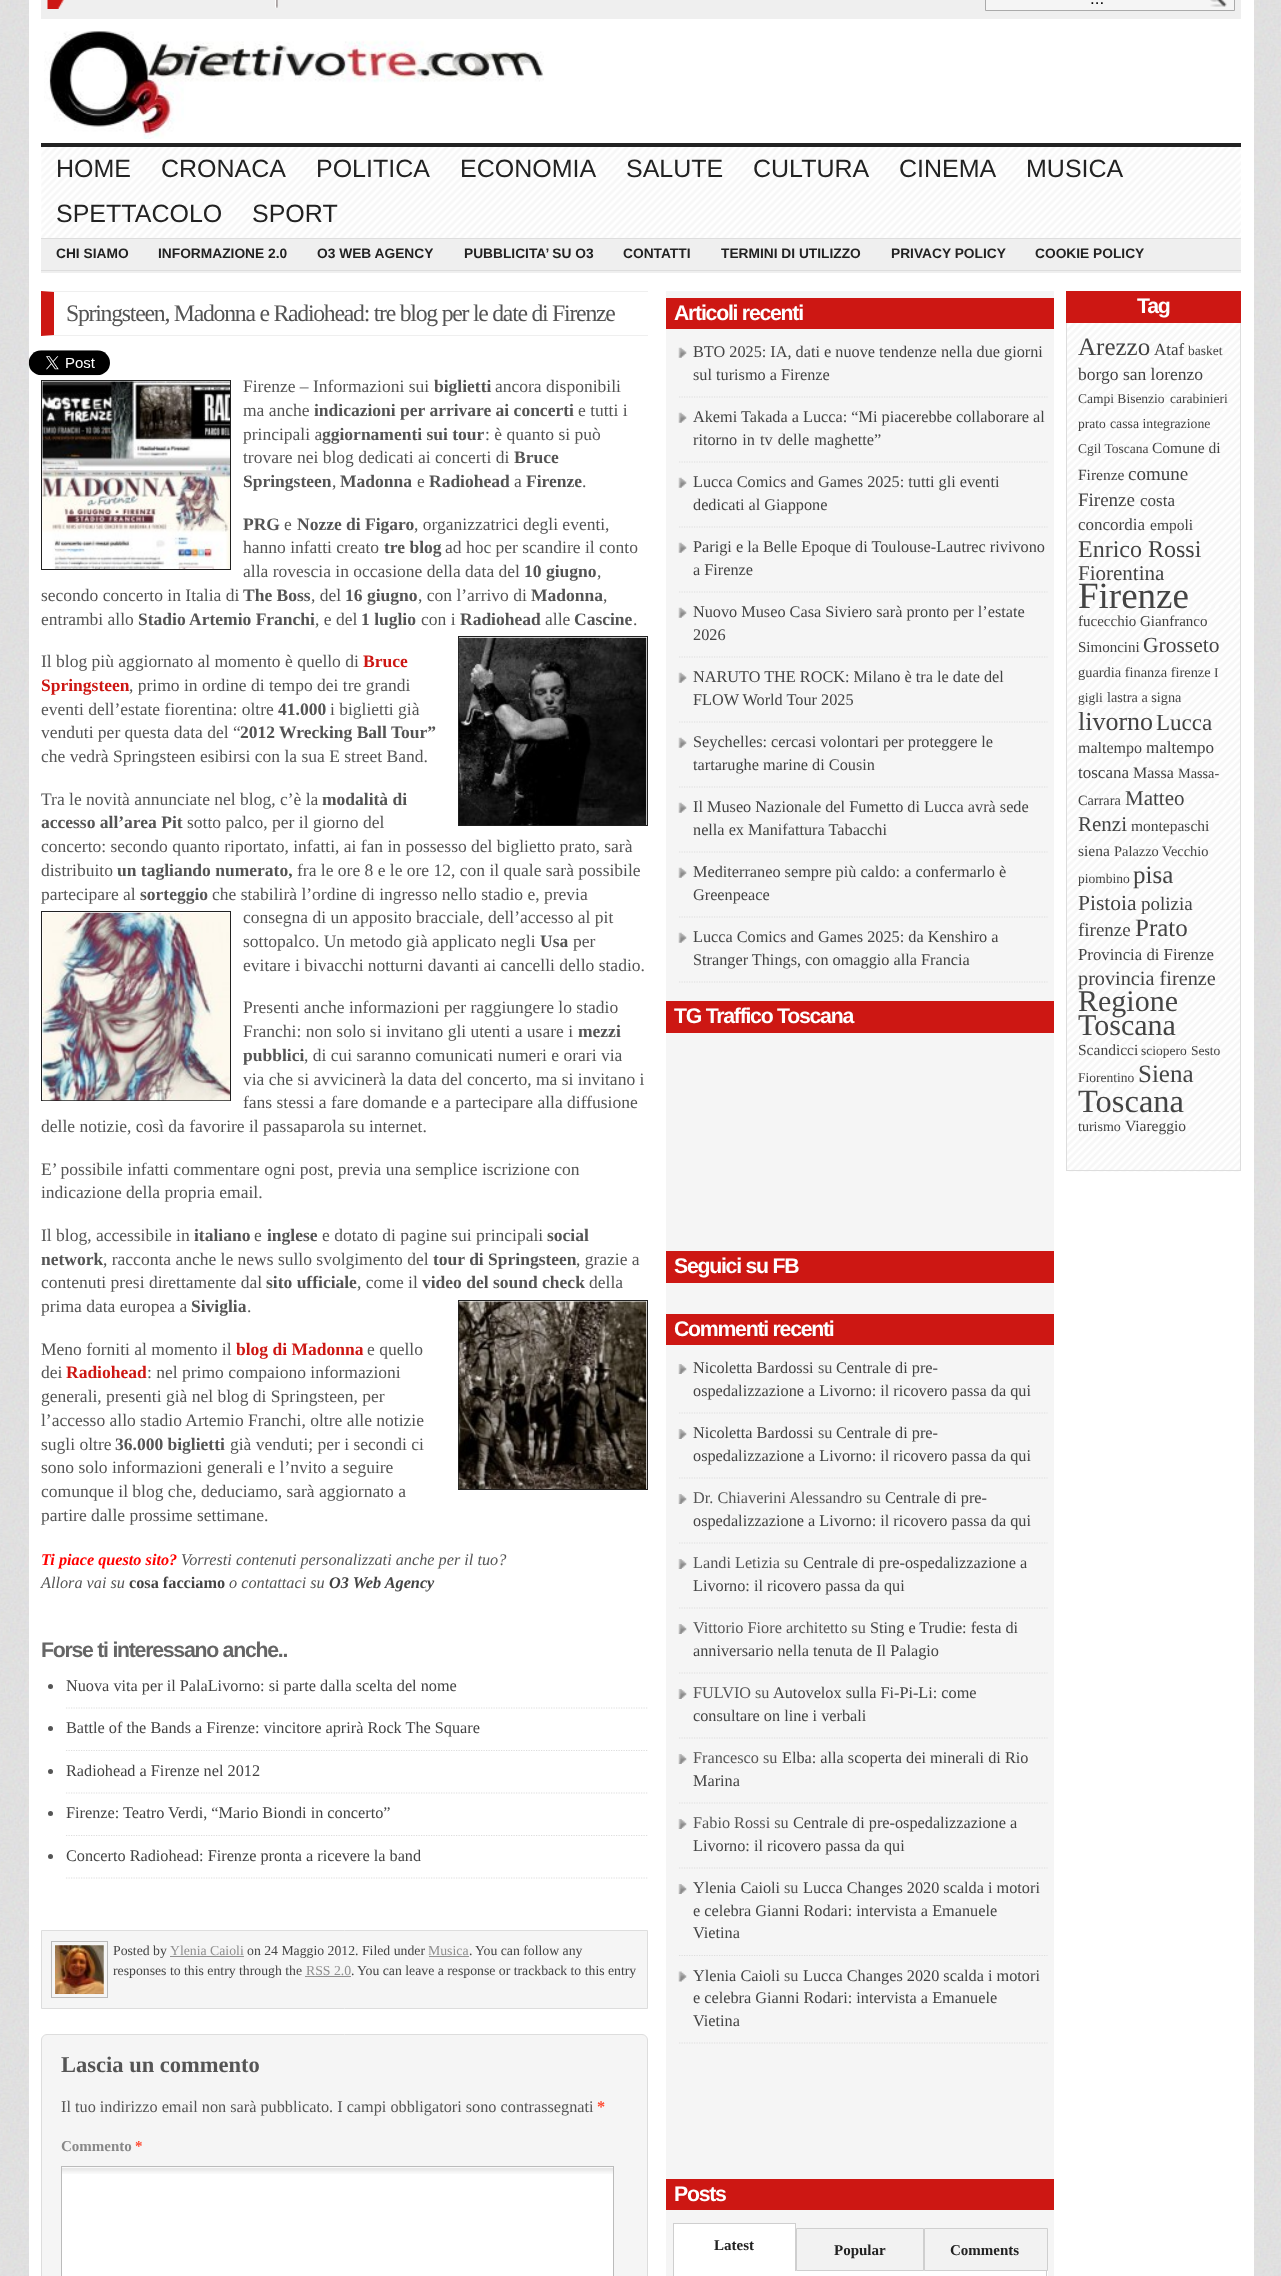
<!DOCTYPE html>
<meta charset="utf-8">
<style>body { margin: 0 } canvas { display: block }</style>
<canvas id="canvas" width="1281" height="2276"></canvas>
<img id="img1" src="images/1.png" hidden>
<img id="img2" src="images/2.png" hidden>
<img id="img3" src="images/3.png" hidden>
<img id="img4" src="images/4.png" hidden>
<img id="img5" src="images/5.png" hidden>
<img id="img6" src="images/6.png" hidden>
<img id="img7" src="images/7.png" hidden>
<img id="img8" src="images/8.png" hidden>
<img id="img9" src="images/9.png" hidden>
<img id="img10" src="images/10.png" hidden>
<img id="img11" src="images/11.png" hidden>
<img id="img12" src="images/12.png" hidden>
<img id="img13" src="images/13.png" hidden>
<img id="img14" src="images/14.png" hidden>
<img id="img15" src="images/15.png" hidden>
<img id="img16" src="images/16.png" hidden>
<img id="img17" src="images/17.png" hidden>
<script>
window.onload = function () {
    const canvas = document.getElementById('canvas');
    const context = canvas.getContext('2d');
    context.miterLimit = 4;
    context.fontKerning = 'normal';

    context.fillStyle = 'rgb(255, 255, 255)';
    context.fillRect(0, 0, 1281, 2276);
    context.drawImage(document.getElementById('img1'), 0, 0, 1281, 2276);
    context.fillRect(29, 0, 1225, 2276);
    context.fillStyle = 'rgb(239, 239, 239)';
    context.fillRect(41, 0, 1200, 19);
    context.drawImage(document.getElementById('img2'), 47, 0, 17, 9);
    context.drawImage(document.getElementById('img3'), 275, 0, 3, 8);
    context.fillStyle = 'rgb(245, 245, 245)';
    context.beginPath();
    context.rect(985.5, -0.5, 249, 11);
    context.fill();
    context.strokeStyle = 'rgb(170, 170, 170)';
    context.stroke();
    context.drawImage(document.getElementById('img4'), 1210, 0, 17, 7);
    context.fillStyle = 'rgb(34, 34, 34)';
    context.fillRect(41, 143, 1200, 4);
    context.drawImage(document.getElementById('img5'), 44, 31, 500, 108);
    context.drawImage(document.getElementById('img6'), 41, 147, 1200, 91);
    context.fillStyle = 'rgb(221, 221, 221)';
    context.fillRect(41, 238, 1200, 1);
    context.fillStyle = 'rgb(239, 239, 239)';
    context.fillRect(41, 239, 1200, 34);
    context.fillStyle = 'rgb(221, 221, 221)';
    context.fillRect(41, 270, 1200, 1);
    context.fillStyle = 'rgb(239, 239, 239)';
    context.beginPath();
    context.moveTo(41, 291);
    context.lineTo(648, 291);
    context.lineTo(648, 292);
    context.lineTo(54, 292);
    context.closePath();
    context.fill();
    context.beginPath();
    context.moveTo(648, 336);
    context.lineTo(41, 336);
    context.lineTo(54, 335);
    context.lineTo(648, 335);
    context.closePath();
    context.fill();
    context.fillStyle = 'rgb(205, 23, 19)';
    context.beginPath();
    context.moveTo(41, 336);
    context.lineTo(41, 291);
    context.lineTo(54, 292);
    context.lineTo(54, 335);
    context.closePath();
    context.fill();
    context.drawImage(document.getElementById('img7'), 28, 350, 82, 26);
    context.strokeStyle = 'rgb(34, 34, 34)';
    context.strokeRect(41.5, 380.5, 189, 189);
    context.drawImage(document.getElementById('img8'), 42, 381, 188, 188);
    context.strokeRect(458.5, 636.5, 189, 189);
    context.drawImage(document.getElementById('img9'), 458, 637, 189, 189);
    context.strokeRect(41.5, 911.5, 189, 189);
    context.drawImage(document.getElementById('img10'), 42, 912, 188, 189);
    context.strokeRect(458.5, 1300.5, 189, 189);
    context.drawImage(document.getElementById('img11'), 458, 1301, 189, 188);
    context.beginPath();
    context.moveTo(66, 1708);
    context.lineTo(647.5, 1708);
    context.strokeStyle = 'rgb(221, 221, 221)';
    context.lineWidth = 1.2;
    context.setLineDash([1.25, 1.25]);
    context.stroke();
    context.fillStyle = 'rgb(85, 85, 85)';
    context.beginPath();
    context.arc(50.5, 1686.5, 2.5, 0, 2 * Math.PI);
    context.fill();
    context.beginPath();
    context.moveTo(66, 1750.5);
    context.lineTo(647.5, 1750.5);
    context.stroke();
    context.beginPath();
    context.arc(50.5, 1728.5, 2.5, 0, 2 * Math.PI);
    context.fill();
    context.beginPath();
    context.moveTo(66, 1793);
    context.lineTo(647.5, 1793);
    context.stroke();
    context.beginPath();
    context.arc(50.5, 1771.5, 2.5, 0, 2 * Math.PI);
    context.fill();
    context.beginPath();
    context.moveTo(66, 1835.5);
    context.lineTo(647.5, 1835.5);
    context.stroke();
    context.beginPath();
    context.arc(50.5, 1813.5, 2.5, 0, 2 * Math.PI);
    context.fill();
    context.beginPath();
    context.moveTo(66, 1878);
    context.lineTo(647.5, 1878);
    context.stroke();
    context.beginPath();
    context.arc(50.5, 1856.5, 2.5, 0, 2 * Math.PI);
    context.fill();
    context.fillStyle = 'rgb(245, 245, 245)';
    context.beginPath();
    context.rect(41.5, 1930.5, 606, 78);
    context.fill();
    context.lineWidth = 1;
    context.setLineDash([]);
    context.stroke();
    context.strokeStyle = 'rgb(187, 187, 187)';
    context.strokeRect(51.5, 1941.5, 56, 56);
    context.drawImage(document.getElementById('img12'), 55, 1945, 49, 49);
    context.fillStyle = 'rgb(143, 143, 143)';
    context.fillRect(170, 1956, 74, 1);
    context.fillRect(429, 1956, 40, 1);
    context.fillRect(305, 1976, 46, 1);
    context.fillStyle = 'rgb(245, 245, 245)';
    context.beginPath();
    context.roundRect(41.5, 2034.5, 606, 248, 5.5);
    context.fill();
    context.strokeStyle = 'rgb(221, 221, 221)';
    context.stroke();
    context.fillStyle = 'rgb(255, 255, 255)';
    context.fillRect(62, 2167, 551, 109);
    context.drawImage(document.getElementById('img13'), 62, 2167, 551, 7);
    context.strokeStyle = 'rgb(187, 187, 187)';
    context.strokeRect(61.5, 2166.5, 552, 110);
    context.fillStyle = 'rgb(245, 245, 245)';
    context.fillRect(666, 291, 388, 1985);
    context.fillStyle = 'rgb(205, 23, 19)';
    context.fillRect(666, 298, 388, 31);
    context.drawImage(document.getElementById('img14'), 678, 347, 9, 11);
    context.beginPath();
    context.moveTo(679, 397);
    context.lineTo(1047.5, 397);
    context.strokeStyle = 'rgb(221, 221, 221)';
    context.lineWidth = 1.2;
    context.setLineDash([1.25, 1.25]);
    context.stroke();
    context.drawImage(document.getElementById('img14'), 678, 412, 9, 11);
    context.beginPath();
    context.moveTo(679, 462);
    context.lineTo(1047.5, 462);
    context.stroke();
    context.drawImage(document.getElementById('img14'), 678, 477, 9, 11);
    context.beginPath();
    context.moveTo(679, 527);
    context.lineTo(1047.5, 527);
    context.stroke();
    context.drawImage(document.getElementById('img14'), 678, 542, 9, 11);
    context.beginPath();
    context.moveTo(679, 592);
    context.lineTo(1047.5, 592);
    context.stroke();
    context.drawImage(document.getElementById('img14'), 678, 607, 9, 11);
    context.beginPath();
    context.moveTo(679, 657);
    context.lineTo(1047.5, 657);
    context.stroke();
    context.drawImage(document.getElementById('img14'), 678, 672, 9, 11);
    context.beginPath();
    context.moveTo(679, 722);
    context.lineTo(1047.5, 722);
    context.stroke();
    context.drawImage(document.getElementById('img14'), 678, 737, 9, 11);
    context.beginPath();
    context.moveTo(679, 787);
    context.lineTo(1047.5, 787);
    context.stroke();
    context.drawImage(document.getElementById('img14'), 678, 802, 9, 11);
    context.beginPath();
    context.moveTo(679, 852);
    context.lineTo(1047.5, 852);
    context.stroke();
    context.drawImage(document.getElementById('img14'), 678, 867, 9, 11);
    context.beginPath();
    context.moveTo(679, 917);
    context.lineTo(1047.5, 917);
    context.stroke();
    context.drawImage(document.getElementById('img14'), 678, 932, 9, 11);
    context.beginPath();
    context.moveTo(679, 982);
    context.lineTo(1047.5, 982);
    context.stroke();
    context.fillRect(666, 1001, 388, 32);
    context.fillRect(666, 1251, 388, 32);
    context.fillRect(666, 1314, 388, 31);
    context.drawImage(document.getElementById('img15'), 678, 1364, 9, 10);
    context.beginPath();
    context.moveTo(679, 1413);
    context.lineTo(1047.5, 1413);
    context.stroke();
    context.drawImage(document.getElementById('img15'), 678, 1429, 9, 10);
    context.beginPath();
    context.moveTo(679, 1478);
    context.lineTo(1047.5, 1478);
    context.stroke();
    context.drawImage(document.getElementById('img15'), 678, 1494, 9, 10);
    context.beginPath();
    context.moveTo(679, 1543);
    context.lineTo(1047.5, 1543);
    context.stroke();
    context.drawImage(document.getElementById('img15'), 678, 1559, 9, 10);
    context.beginPath();
    context.moveTo(679, 1608);
    context.lineTo(1047.5, 1608);
    context.stroke();
    context.drawImage(document.getElementById('img15'), 678, 1624, 9, 10);
    context.beginPath();
    context.moveTo(679, 1673);
    context.lineTo(1047.5, 1673);
    context.stroke();
    context.drawImage(document.getElementById('img15'), 678, 1689, 9, 10);
    context.beginPath();
    context.moveTo(679, 1738);
    context.lineTo(1047.5, 1738);
    context.stroke();
    context.drawImage(document.getElementById('img15'), 678, 1754, 9, 10);
    context.beginPath();
    context.moveTo(679, 1803);
    context.lineTo(1047.5, 1803);
    context.stroke();
    context.drawImage(document.getElementById('img15'), 678, 1819, 9, 10);
    context.beginPath();
    context.moveTo(679, 1868);
    context.lineTo(1047.5, 1868);
    context.stroke();
    context.drawImage(document.getElementById('img15'), 678, 1884, 9, 10);
    context.beginPath();
    context.moveTo(679, 1955.5);
    context.lineTo(1047.5, 1955.5);
    context.stroke();
    context.drawImage(document.getElementById('img16'), 678, 1971, 9, 11);
    context.beginPath();
    context.moveTo(679, 2043);
    context.lineTo(1047.5, 2043);
    context.stroke();
    context.fillRect(666, 2179, 388, 31);
    context.fillStyle = 'rgb(255, 255, 255)';
    context.fillRect(674, 2224, 121, 47);
    context.fillStyle = 'rgb(207, 207, 207)';
    context.fillRect(673, 2223, 123, 1);
    context.fillRect(795, 2223, 1, 48);
    context.fillRect(673, 2264, 1, 12);
    context.fillRect(673, 2223, 1, 48);
    context.fillStyle = 'rgb(242, 242, 242)';
    context.beginPath();
    context.rect(796.5, 2228.5, 127, 42);
    context.fill();
    context.strokeStyle = 'rgb(207, 207, 207)';
    context.lineWidth = 1;
    context.setLineDash([]);
    context.stroke();
    context.fillStyle = 'rgb(255, 255, 255)';
    context.fillRect(674, 2271, 374, 5);
    context.fillStyle = 'rgb(207, 207, 207)';
    context.fillRect(1046, 2264, 1, 12);
    context.fillStyle = 'rgb(242, 242, 242)';
    context.beginPath();
    context.rect(924.5, 2228.5, 123, 42);
    context.fill();
    context.stroke();
    context.drawImage(document.getElementById('img17'), 1066, 323, 175, 849);
    context.fillStyle = 'rgb(221, 221, 221)';
    context.fillRect(1240, 323, 1, 848);
    context.fillRect(1066, 1170, 175, 1);
    context.fillRect(1066, 323, 1, 848);
    context.fillStyle = 'rgb(205, 23, 19)';
    context.fillRect(1066, 291, 175, 32);
    context.font = '17px Liberation Sans';
    context.fillStyle = 'rgb(0, 0, 0)';
    context.fillText('...', 1090, 4);
    context.font = '25px Liberation Sans';
    context.fillStyle = 'rgb(34, 34, 34)';
    context.fillText('HOME', 56, 177);
    context.fillText('CRONACA', 161, 177);
    context.fillText('POLITICA', 316, 177);
    context.fillText('ECONOMIA', 460, 177);
    context.fillText('SALUTE', 626, 177);
    context.fillText('CULTURA', 753, 177);
    context.fillText('CINEMA', 899, 177);
    context.fillText('MUSICA', 1026, 177);
    context.fillText('SPETTACOLO', 56, 222);
    context.fillText('SPORT', 252, 222);
    context.font = 'bold 13.75px Liberation Sans';
    context.fillText('CHI SIAMO', 56, 258);
    context.fillText('INFORMAZIONE 2.0', 158, 258);
    context.fillText('O3 WEB AGENCY', 317, 258);
    context.fillText('PUBBLICITA’ SU O3', 464, 258);
    context.fillText('CONTATTI', 623, 258);
    context.fillText('TERMINI DI UTILIZZO', 721, 258);
    context.fillText('PRIVACY POLICY', 891, 258);
    context.fillText('COOKIE POLICY', 1035, 258);
    context.letterSpacing = '-1.25px';
    context.font = '23.75px Liberation Serif';
    context.fillStyle = 'rgb(85, 85, 85)';
    context.fillText('Springsteen, Madonna e Radiohead: tre blog per le date di Firenze', 66, 321);
    context.letterSpacing = '0px';
    context.font = '17.5px Liberation Serif';
    context.fillText('Firenze – Informazioni sui', 243, 392);
    context.font = 'bold 17.5px Liberation Serif';
    context.fillText('biglietti', 434, 392);
    context.font = '17.5px Liberation Serif';
    context.fillText('ancora disponibili', 495, 392);
    context.fillText('ma anche', 243, 416);
    context.font = 'bold 17.5px Liberation Serif';
    context.fillText('indicazioni per arrivare ai concerti', 314, 416);
    context.font = '17.5px Liberation Serif';
    context.fillText('e tutti i', 578, 416);
    context.fillText('principali a', 243, 440);
    context.font = 'bold 17.5px Liberation Serif';
    context.fillText('ggiornamenti sui tour', 322, 440);
    context.font = '17.5px Liberation Serif';
    context.fillText(': è quanto si può', 485, 440);
    context.fillText('trovare nei blog dedicati ai concerti di', 243, 463);
    context.font = 'bold 17.5px Liberation Serif';
    context.fillText('Bruce', 514, 463);
    context.fillText('Springsteen', 243, 487);
    context.font = '17.5px Liberation Serif';
    context.fillText(',', 332, 487);
    context.font = 'bold 17.5px Liberation Serif';
    context.fillText('Madonna', 340, 487);
    context.font = '17.5px Liberation Serif';
    context.fillText('e', 417, 487);
    context.font = 'bold 17.5px Liberation Serif';
    context.fillText('Radiohead', 429, 487);
    context.font = '17.5px Liberation Serif';
    context.fillText('a', 514, 487);
    context.font = 'bold 17.5px Liberation Serif';
    context.fillText('Firenze', 526, 487);
    context.font = '17.5px Liberation Serif';
    context.fillText('.', 582, 487);
    context.font = 'bold 17.5px Liberation Serif';
    context.fillText('PRG', 243, 530);
    context.font = '17.5px Liberation Serif';
    context.fillText('e', 284, 530);
    context.font = 'bold 17.5px Liberation Serif';
    context.fillText('Nozze di Figaro', 297, 530);
    context.font = '17.5px Liberation Serif';
    context.fillText(', organizzatrici degli eventi,', 414, 530);
    context.fillText('hanno infatti creato', 243, 553);
    context.font = 'bold 17.5px Liberation Serif';
    context.fillText('tre blog', 384, 553);
    context.font = '17.5px Liberation Serif';
    context.fillText('ad hoc per scandire il conto', 445, 553);
    context.fillText('alla rovescia in occasione della data del', 243, 577);
    context.font = 'bold 17.5px Liberation Serif';
    context.fillText('10 giugno', 524, 577);
    context.font = '17.5px Liberation Serif';
    context.fillText(',', 597, 577);
    context.fillText('secondo concerto in Italia di', 41, 601);
    context.font = 'bold 17.5px Liberation Serif';
    context.fillText('The Boss', 243, 601);
    context.font = '17.5px Liberation Serif';
    context.fillText(', del', 311, 601);
    context.font = 'bold 17.5px Liberation Serif';
    context.fillText('16 giugno', 345, 601);
    context.font = '17.5px Liberation Serif';
    context.fillText(', con l’arrivo di', 418, 601);
    context.font = 'bold 17.5px Liberation Serif';
    context.fillText('Madonna', 531, 601);
    context.font = '17.5px Liberation Serif';
    context.fillText(',', 603, 601);
    context.fillText('entrambi allo', 41, 625);
    context.font = 'bold 17.5px Liberation Serif';
    context.fillText('Stadio Artemio Franchi', 138, 625);
    context.font = '17.5px Liberation Serif';
    context.fillText(', e del', 315, 625);
    context.font = 'bold 17.5px Liberation Serif';
    context.fillText('1 luglio', 361, 625);
    context.font = '17.5px Liberation Serif';
    context.fillText('con i', 421, 625);
    context.font = 'bold 17.5px Liberation Serif';
    context.fillText('Radiohead', 460, 625);
    context.font = '17.5px Liberation Serif';
    context.fillText('alle', 545, 625);
    context.font = 'bold 17.5px Liberation Serif';
    context.fillText('Cascine', 574, 625);
    context.font = '17.5px Liberation Serif';
    context.fillText('.', 633, 625);
    context.fillText('Il blog più aggiornato al momento è quello di', 41, 667);
    context.font = 'bold 17.5px Liberation Serif';
    context.fillStyle = 'rgb(205, 23, 19)';
    context.fillText('Bruce', 363, 667);
    context.fillText('Springsteen', 41, 691);
    context.font = '17.5px Liberation Serif';
    context.fillStyle = 'rgb(85, 85, 85)';
    context.fillText(', primo in ordine di tempo dei tre grandi', 129, 691);
    context.fillText('eventi dell’estate fiorentina: oltre', 41, 715);
    context.font = 'bold 17.5px Liberation Serif';
    context.fillText('41.000', 278, 715);
    context.font = '17.5px Liberation Serif';
    context.fillText('i biglietti già', 330, 715);
    context.fillText('venduti per questa data del “', 41, 738);
    context.font = 'bold 17.5px Liberation Serif';
    context.fillText('2012 Wrecking Ball Tour”', 240, 738);
    context.font = '17.5px Liberation Serif';
    context.fillText('che vedrà Springsteen esibirsi con la sua E street Band.', 41, 762);
    context.fillText('Tra le novità annunciate nel blog, c’è la', 41, 805);
    context.font = 'bold 17.5px Liberation Serif';
    context.fillText('modalità di', 322, 805);
    context.fillText('accesso all’area Pit', 41, 828);
    context.font = '17.5px Liberation Serif';
    context.fillText('sotto palco, per il giorno del', 187, 828);
    context.fillText('concerto: secondo quanto riportato, infatti, ai fan in possesso del biglietto prato, sarà', 41, 852);
    context.fillText('distribuito', 41, 876);
    context.font = 'bold 17.5px Liberation Serif';
    context.fillText('un tagliando numerato,', 117, 876);
    context.font = '17.5px Liberation Serif';
    context.fillText('fra le ore 8 e le ore 12, con il quale sarà possibile', 297, 876);
    context.fillText('partecipare al', 41, 900);
    context.font = 'bold 17.5px Liberation Serif';
    context.fillText('sorteggio', 140, 900);
    context.font = '17.5px Liberation Serif';
    context.fillText('che stabilirà l’ordine di ingresso nello stadio e, previa', 212, 900);
    context.fillText('consegna di un apposito bracciale, dell’accesso al pit', 243, 923);
    context.fillText('sottopalco. Un metodo già applicato negli', 243, 947);
    context.font = 'bold 17.5px Liberation Serif';
    context.fillText('Usa', 540, 947);
    context.font = '17.5px Liberation Serif';
    context.fillText('per', 573, 947);
    context.fillText('evitare i bivacchi notturni davanti ai cancelli dello stadio.', 243, 971);
    context.fillText('Presenti anche informazioni per raggiungere lo stadio', 243, 1013);
    context.fillText('Franchi: non solo si invitano gli utenti a usare i', 243, 1037);
    context.font = 'bold 17.5px Liberation Serif';
    context.fillText('mezzi', 578, 1037);
    context.fillText('pubblici', 243, 1061);
    context.font = '17.5px Liberation Serif';
    context.fillText(', di cui saranno comunicati numeri e orari via', 304, 1061);
    context.fillText('via che si avvicinerà la data del concerto, ma si invitano i', 243, 1085);
    context.fillText('fans stessi a fare domande e a partecipare alla diffusione', 243, 1108);
    context.fillText('delle notizie, così da favorire il passaparola su internet.', 41, 1132);
    context.fillText('E’ possibile infatti commentare ogni post, previa una semplice iscrizione con', 41, 1175);
    context.fillText('indicazione della propria email.', 41, 1198);
    context.fillText('Il blog, accessibile in', 41, 1241);
    context.font = 'bold 17.5px Liberation Serif';
    context.fillText('italiano', 194, 1241);
    context.font = '17.5px Liberation Serif';
    context.fillText('e', 254, 1241);
    context.font = 'bold 17.5px Liberation Serif';
    context.fillText('inglese', 267, 1241);
    context.font = '17.5px Liberation Serif';
    context.fillText('e dotato di pagine sui principali', 322, 1241);
    context.font = 'bold 17.5px Liberation Serif';
    context.fillText('social', 547, 1241);
    context.fillText('network', 41, 1265);
    context.font = '17.5px Liberation Serif';
    context.fillText(', racconta anche le news sullo svolgimento del', 103, 1265);
    context.font = 'bold 17.5px Liberation Serif';
    context.fillText('tour di Springsteen', 433, 1265);
    context.font = '17.5px Liberation Serif';
    context.fillText(', grazie a', 576, 1265);
    context.fillText('contenuti presi direttamente dal', 41, 1288);
    context.font = 'bold 17.5px Liberation Serif';
    context.fillText('sito ufficiale', 266, 1288);
    context.font = '17.5px Liberation Serif';
    context.fillText(', come il', 357, 1288);
    context.font = 'bold 17.5px Liberation Serif';
    context.fillText('video del sound check', 422, 1288);
    context.font = '17.5px Liberation Serif';
    context.fillText('della', 589, 1288);
    context.fillText('prima data europea a', 41, 1312);
    context.font = 'bold 17.5px Liberation Serif';
    context.fillText('Siviglia', 191, 1312);
    context.font = '17.5px Liberation Serif';
    context.fillText('.', 247, 1312);
    context.fillText('Meno forniti al momento il', 41, 1355);
    context.font = 'bold 17.5px Liberation Serif';
    context.fillStyle = 'rgb(205, 23, 19)';
    context.fillText('blog di Madonna', 236, 1355);
    context.font = '17.5px Liberation Serif';
    context.fillStyle = 'rgb(85, 85, 85)';
    context.fillText('e quello', 367, 1355);
    context.fillText('dei', 41, 1378);
    context.font = 'bold 17.5px Liberation Serif';
    context.fillStyle = 'rgb(205, 23, 19)';
    context.fillText('Radiohead', 66, 1378);
    context.font = '17.5px Liberation Serif';
    context.fillStyle = 'rgb(85, 85, 85)';
    context.fillText(': nel primo compaiono informazioni', 147, 1378);
    context.fillText('generali, presenti già nel blog di Springsteen, per', 41, 1402);
    context.fillText('l’accesso allo stadio Artemio Franchi, oltre alle notizie', 41, 1426);
    context.fillText('sugli oltre', 41, 1450);
    context.font = 'bold 17.5px Liberation Serif';
    context.fillText('36.000 biglietti', 115, 1450);
    context.font = '17.5px Liberation Serif';
    context.fillText('già venduti; per i secondi ci', 230, 1450);
    context.fillText('sono solo informazioni generali e l’nvito a seguire', 41, 1473);
    context.fillText('comunque il blog che, deduciamo, sarà aggiornato a', 41, 1497);
    context.fillText('partire dalle prossime settimane.', 41, 1521);
    context.font = 'italic bold 16.25px Liberation Serif';
    context.fillStyle = 'rgb(255, 0, 0)';
    context.fillText('Ti piace questo sito?', 41, 1565);
    context.font = 'italic 16.25px Liberation Serif';
    context.fillStyle = 'rgb(85, 85, 85)';
    context.fillText('Vorresti contenuti personalizzati anche per il tuo?', 181, 1565);
    context.fillText('Allora vai su', 41, 1588);
    context.font = 'bold 16.25px Liberation Serif';
    context.fillStyle = 'rgb(68, 68, 68)';
    context.fillText('cosa facciamo', 129, 1588);
    context.font = 'italic 16.25px Liberation Serif';
    context.fillStyle = 'rgb(85, 85, 85)';
    context.fillText('o contattaci su', 229, 1588);
    context.font = 'italic bold 16.25px Liberation Serif';
    context.fillStyle = 'rgb(68, 68, 68)';
    context.fillText('O3 Web Agency', 329, 1588);
    context.letterSpacing = '-1.25px';
    context.font = 'bold 21.25px Liberation Sans';
    context.fillStyle = 'rgb(102, 102, 102)';
    context.fillText('Forse ti interessano anche..', 41, 1657);
    context.letterSpacing = '0px';
    context.font = '16.25px Liberation Serif';
    context.fillStyle = 'rgb(68, 68, 68)';
    context.fillText('Nuova vita per il PalaLivorno: si parte dalla scelta del nome', 66, 1691);
    context.fillText('Battle of the Bands a Firenze: vincitore aprirà Rock The Square', 66, 1733);
    context.fillText('Radiohead a Firenze nel 2012', 66, 1776);
    context.fillText('Firenze: Teatro Verdi, “Mario Biondi in concerto”', 66, 1818);
    context.fillText('Concerto Radiohead: Firenze pronta a ricevere la band', 66, 1861);
    context.font = '13.75px Liberation Serif';
    context.fillText('Posted by', 113, 1955);
    context.fillStyle = 'rgb(143, 143, 143)';
    context.fillText('Ylenia Caioli', 170, 1955);
    context.fillStyle = 'rgb(68, 68, 68)';
    context.fillText('on 24 Maggio 2012. Filed under', 247, 1955);
    context.fillStyle = 'rgb(143, 143, 143)';
    context.fillText('Musica', 428, 1955);
    context.fillStyle = 'rgb(68, 68, 68)';
    context.fillText('.', 469, 1955);
    context.fillText('You can follow any', 475, 1955);
    context.fillText('responses to this entry through the', 113, 1975);
    context.fillStyle = 'rgb(143, 143, 143)';
    context.fillText('RSS 2.0', 306, 1975);
    context.fillStyle = 'rgb(68, 68, 68)';
    context.fillText('.', 351, 1975);
    context.fillText('You can leave a response or trackback to this entry', 357, 1975);
    context.font = 'bold 22.5px Liberation Serif';
    context.fillStyle = 'rgb(85, 85, 85)';
    context.fillText('Lascia un commento', 61, 2072);
    context.font = '16.25px Liberation Serif';
    context.fillText('Il tuo indirizzo email non sarà pubblicato. I campi obbligatori sono contrassegnati', 61, 2112);
    context.font = 'bold 16.25px Liberation Serif';
    context.fillStyle = 'rgb(255, 75, 51)';
    context.fillText('*', 597, 2112);
    context.font = 'bold 15px Liberation Serif';
    context.fillStyle = 'rgb(136, 136, 136)';
    context.fillText('Commento', 61, 2151);
    context.fillStyle = 'rgb(255, 75, 51)';
    context.fillText('*', 135, 2151);
    context.letterSpacing = '-1.25px';
    context.font = 'bold 21.25px Liberation Sans';
    context.fillStyle = 'rgb(255, 255, 255)';
    context.fillText('Articoli recenti', 674, 320);
    context.letterSpacing = '0px';
    context.font = '16.25px Liberation Serif';
    context.fillStyle = 'rgb(68, 68, 68)';
    context.fillText('BTO 2025: IA, dati e nuove tendenze nella due giorni', 693, 357);
    context.fillText('sul turismo a Firenze', 693, 380);
    context.fillText('Akemi Takada a Lucca: “Mi piacerebbe collaborare al', 693, 422);
    context.wordSpacing = '1px';
    context.fillText('ritorno in tv delle maghette”', 693, 445);
    context.wordSpacing = '0px';
    context.fillText('Lucca Comics and Games 2025: tutti gli eventi', 693, 487);
    context.fillText('dedicati al Giappone', 693, 510);
    context.fillText('Parigi e la Belle Epoque di Toulouse-Lautrec rivivono', 693, 552);
    context.fillText('a Firenze', 693, 575);
    context.fillText('Nuovo Museo Casa Siviero sarà pronto per l’estate', 693, 617);
    context.fillText('2026', 693, 640);
    context.fillText('NARUTO THE ROCK: Milano è tra le date del', 693, 682);
    context.fillText('FLOW World Tour 2025', 693, 705);
    context.fillText('Seychelles: cercasi volontari per proteggere le', 693, 747);
    context.fillText('tartarughe marine di Cousin', 693, 770);
    context.fillText('Il Museo Nazionale del Fumetto di Lucca avrà sede', 693, 812);
    context.fillText('nella ex Manifattura Tabacchi', 693, 835);
    context.fillText('Mediterraneo sempre più caldo: a confermarlo è', 693, 877);
    context.fillText('Greenpeace', 693, 900);
    context.fillText('Lucca Comics and Games 2025: da Kenshiro a', 693, 942);
    context.fillText('Stranger Things, con omaggio alla Francia', 693, 965);
    context.letterSpacing = '-1.25px';
    context.font = 'bold 21.25px Liberation Sans';
    context.fillStyle = 'rgb(255, 255, 255)';
    context.fillText('TG Traffico Toscana', 674, 1023);
    context.fillText('Seguici su FB', 674, 1273);
    context.fillText('Commenti recenti', 674, 1336);
    context.letterSpacing = '0px';
    context.font = '16.25px Liberation Serif';
    context.fillStyle = 'rgb(68, 68, 68)';
    context.fillText('Nicoletta Bardossi', 693, 1373);
    context.fillStyle = 'rgb(85, 85, 85)';
    context.fillText('su', 818, 1373);
    context.fillStyle = 'rgb(68, 68, 68)';
    context.fillText('Centrale di pre-', 836, 1373);
    context.fillText('ospedalizzazione a Livorno: il ricovero passa da qui', 693, 1396);
    context.fillText('Nicoletta Bardossi', 693, 1438);
    context.fillStyle = 'rgb(85, 85, 85)';
    context.fillText('su', 818, 1438);
    context.fillStyle = 'rgb(68, 68, 68)';
    context.fillText('Centrale di pre-', 836, 1438);
    context.fillText('ospedalizzazione a Livorno: il ricovero passa da qui', 693, 1461);
    context.fillStyle = 'rgb(85, 85, 85)';
    context.fillText('Dr. Chiaverini Alessandro su', 693, 1503);
    context.fillStyle = 'rgb(68, 68, 68)';
    context.fillText('Centrale di pre-', 885, 1503);
    context.fillText('ospedalizzazione a Livorno: il ricovero passa da qui', 693, 1526);
    context.fillStyle = 'rgb(85, 85, 85)';
    context.fillText('Landi Letizia su', 693, 1568);
    context.fillStyle = 'rgb(68, 68, 68)';
    context.fillText('Centrale di pre-ospedalizzazione a', 803, 1568);
    context.fillText('Livorno: il ricovero passa da qui', 693, 1591);
    context.fillStyle = 'rgb(85, 85, 85)';
    context.fillText('Vittorio Fiore architetto su', 693, 1633);
    context.fillStyle = 'rgb(68, 68, 68)';
    context.fillText('Sting e Trudie: festa di', 870, 1633);
    context.fillText('anniversario nella tenuta de Il Palagio', 693, 1656);
    context.fillStyle = 'rgb(85, 85, 85)';
    context.fillText('FULVIO', 693, 1698);
    context.fillText('su', 755, 1698);
    context.fillStyle = 'rgb(68, 68, 68)';
    context.fillText('Autovelox sulla Fi-Pi-Li: come', 773, 1698);
    context.fillText('consultare on line i verbali', 693, 1721);
    context.fillStyle = 'rgb(85, 85, 85)';
    context.fillText('Francesco su', 693, 1763);
    context.fillStyle = 'rgb(68, 68, 68)';
    context.fillText('Elba: alla scoperta dei minerali di Rio', 782, 1763);
    context.fillText('Marina', 693, 1786);
    context.fillStyle = 'rgb(85, 85, 85)';
    context.fillText('Fabio Rossi su', 693, 1828);
    context.fillStyle = 'rgb(68, 68, 68)';
    context.fillText('Centrale di pre-ospedalizzazione a', 793, 1828);
    context.fillText('Livorno: il ricovero passa da qui', 693, 1851);
    context.fillText('Ylenia Caioli', 693, 1893);
    context.fillStyle = 'rgb(85, 85, 85)';
    context.fillText('su', 784, 1893);
    context.fillStyle = 'rgb(68, 68, 68)';
    context.fillText('Lucca Changes 2020 scalda i motori', 803, 1893);
    context.fillText('e celebra Gianni Rodari: intervista a Emanuele', 693, 1916);
    context.fillText('Vietina', 693, 1938);
    context.fillText('Ylenia Caioli', 693, 1981);
    context.fillStyle = 'rgb(85, 85, 85)';
    context.fillText('su', 784, 1981);
    context.fillStyle = 'rgb(68, 68, 68)';
    context.fillText('Lucca Changes 2020 scalda i motori', 803, 1981);
    context.fillText('e celebra Gianni Rodari: intervista a Emanuele', 693, 2003);
    context.fillText('Vietina', 693, 2026);
    context.letterSpacing = '-1.25px';
    context.font = 'bold 21.25px Liberation Sans';
    context.fillStyle = 'rgb(255, 255, 255)';
    context.fillText('Posts', 674, 2201);
    context.letterSpacing = '0px';
    context.font = 'bold 15px Liberation Serif';
    context.fillStyle = 'rgb(34, 34, 34)';
    context.fillText('Latest', 714, 2250);
    context.fillText('Popular', 834, 2255);
    context.fillText('Comments', 950, 2255);
    context.letterSpacing = '-1.25px';
    context.font = 'bold 21.25px Liberation Sans';
    context.fillStyle = 'rgb(255, 255, 255)';
    context.fillText('Tag', 1137, 313);
    context.letterSpacing = '0px';
    context.font = '25px Liberation Serif';
    context.fillStyle = 'rgb(68, 68, 68)';
    context.fillText('Arezzo', 1078, 355);
    context.font = '17px Liberation Serif';
    context.fillText('Ataf', 1154, 355);
    context.font = '13.5px Liberation Serif';
    context.fillText('basket', 1188, 355);
    context.font = '17.5px Liberation Serif';
    context.fillText('borgo san lorenzo', 1078, 380);
    context.font = '13.5px Liberation Serif';
    context.fillText('Campi Bisenzio', 1078, 403);
    context.fillText('carabinieri', 1170, 403);
    context.fillText('prato', 1078, 428);
    context.font = '13.75px Liberation Serif';
    context.fillText('cassa integrazione', 1110, 428);
    context.font = '13.5px Liberation Serif';
    context.fillText('Cgil Toscana', 1078, 453);
    context.font = '15.5px Liberation Serif';
    context.fillText('Comune di', 1152, 453);
    context.fillText('Firenze', 1078, 480);
    context.font = '19px Liberation Serif';
    context.fillText('comune', 1128, 480);
    context.fillText('Firenze', 1078, 506);
    context.font = '17px Liberation Serif';
    context.fillText('costa', 1140, 506);
    context.fillText('concordia', 1078, 530);
    context.font = '15.5px Liberation Serif';
    context.fillText('empoli', 1150, 530);
    context.font = '24px Liberation Serif';
    context.fillText('Enrico Rossi', 1078, 557);
    context.font = '21px Liberation Serif';
    context.fillText('Fiorentina', 1078, 580);
    context.font = '37px Liberation Serif';
    context.fillText('Firenze', 1078, 608);
    context.font = '15px Liberation Serif';
    context.fillText('fucecchio', 1078, 626);
    context.fillText('Gianfranco', 1140, 626);
    context.fillText('Simoncini', 1078, 652);
    context.font = '21.5px Liberation Serif';
    context.fillText('Grosseto', 1143, 652);
    context.font = '14.4px Liberation Serif';
    context.fillText('guardia finanza firenze', 1078, 677);
    context.font = '13.5px Liberation Serif';
    context.fillText('I', 1214, 677);
    context.fillText('gigli', 1078, 702);
    context.font = '14.25px Liberation Serif';
    context.fillText('lastra a signa', 1107, 702);
    context.font = '26px Liberation Serif';
    context.fillText('livorno', 1078, 730);
    context.font = '23px Liberation Serif';
    context.fillText('Lucca', 1156, 730);
    context.font = '16px Liberation Serif';
    context.fillText('maltempo', 1078, 753);
    context.font = '17px Liberation Serif';
    context.fillText('maltempo', 1146, 753);
    context.fillText('toscana', 1078, 778);
    context.font = '16px Liberation Serif';
    context.fillText('Massa', 1133, 778);
    context.font = '14.25px Liberation Serif';
    context.fillText('Massa-', 1178, 778);
    context.fillText('Carrara', 1078, 805);
    context.font = '21px Liberation Serif';
    context.fillText('Matteo', 1125, 805);
    context.fillText('Renzi', 1078, 831);
    context.font = '15.5px Liberation Serif';
    context.fillText('montepaschi', 1131, 831);
    context.fillText('siena', 1078, 856);
    context.font = '14.4px Liberation Serif';
    context.fillText('Palazzo Vecchio', 1114, 856);
    context.font = '13.5px Liberation Serif';
    context.fillText('piombino', 1078, 883);
    context.font = '25px Liberation Serif';
    context.fillText('pisa', 1133, 883);
    context.font = '21.5px Liberation Serif';
    context.fillText('Pistoia', 1078, 910);
    context.font = '19px Liberation Serif';
    context.fillText('polizia', 1141, 910);
    context.fillText('firenze', 1078, 936);
    context.font = '25px Liberation Serif';
    context.fillText('Prato', 1135, 936);
    context.font = '16.75px Liberation Serif';
    context.fillText('Provincia di Firenze', 1078, 960);
    context.font = '20.25px Liberation Serif';
    context.fillText('provincia firenze', 1078, 985);
    context.font = '30px Liberation Serif';
    context.fillText('Regione', 1078, 1011);
    context.fillText('Toscana', 1078, 1035);
    context.font = '15.5px Liberation Serif';
    context.fillText('Scandicci', 1078, 1055);
    context.font = '13.5px Liberation Serif';
    context.fillText('sciopero', 1141, 1055);
    context.fillText('Sesto', 1191, 1055);
    context.fillText('Fiorentino', 1078, 1082);
    context.font = '25px Liberation Serif';
    context.fillText('Siena', 1138, 1082);
    context.font = '32.5px Liberation Serif';
    context.fillText('Toscana', 1078, 1112);
    context.font = '14px Liberation Serif';
    context.fillText('turismo', 1078, 1131);
    context.font = '15.5px Liberation Serif';
    context.fillText('Viareggio', 1125, 1131);
};
</script>
